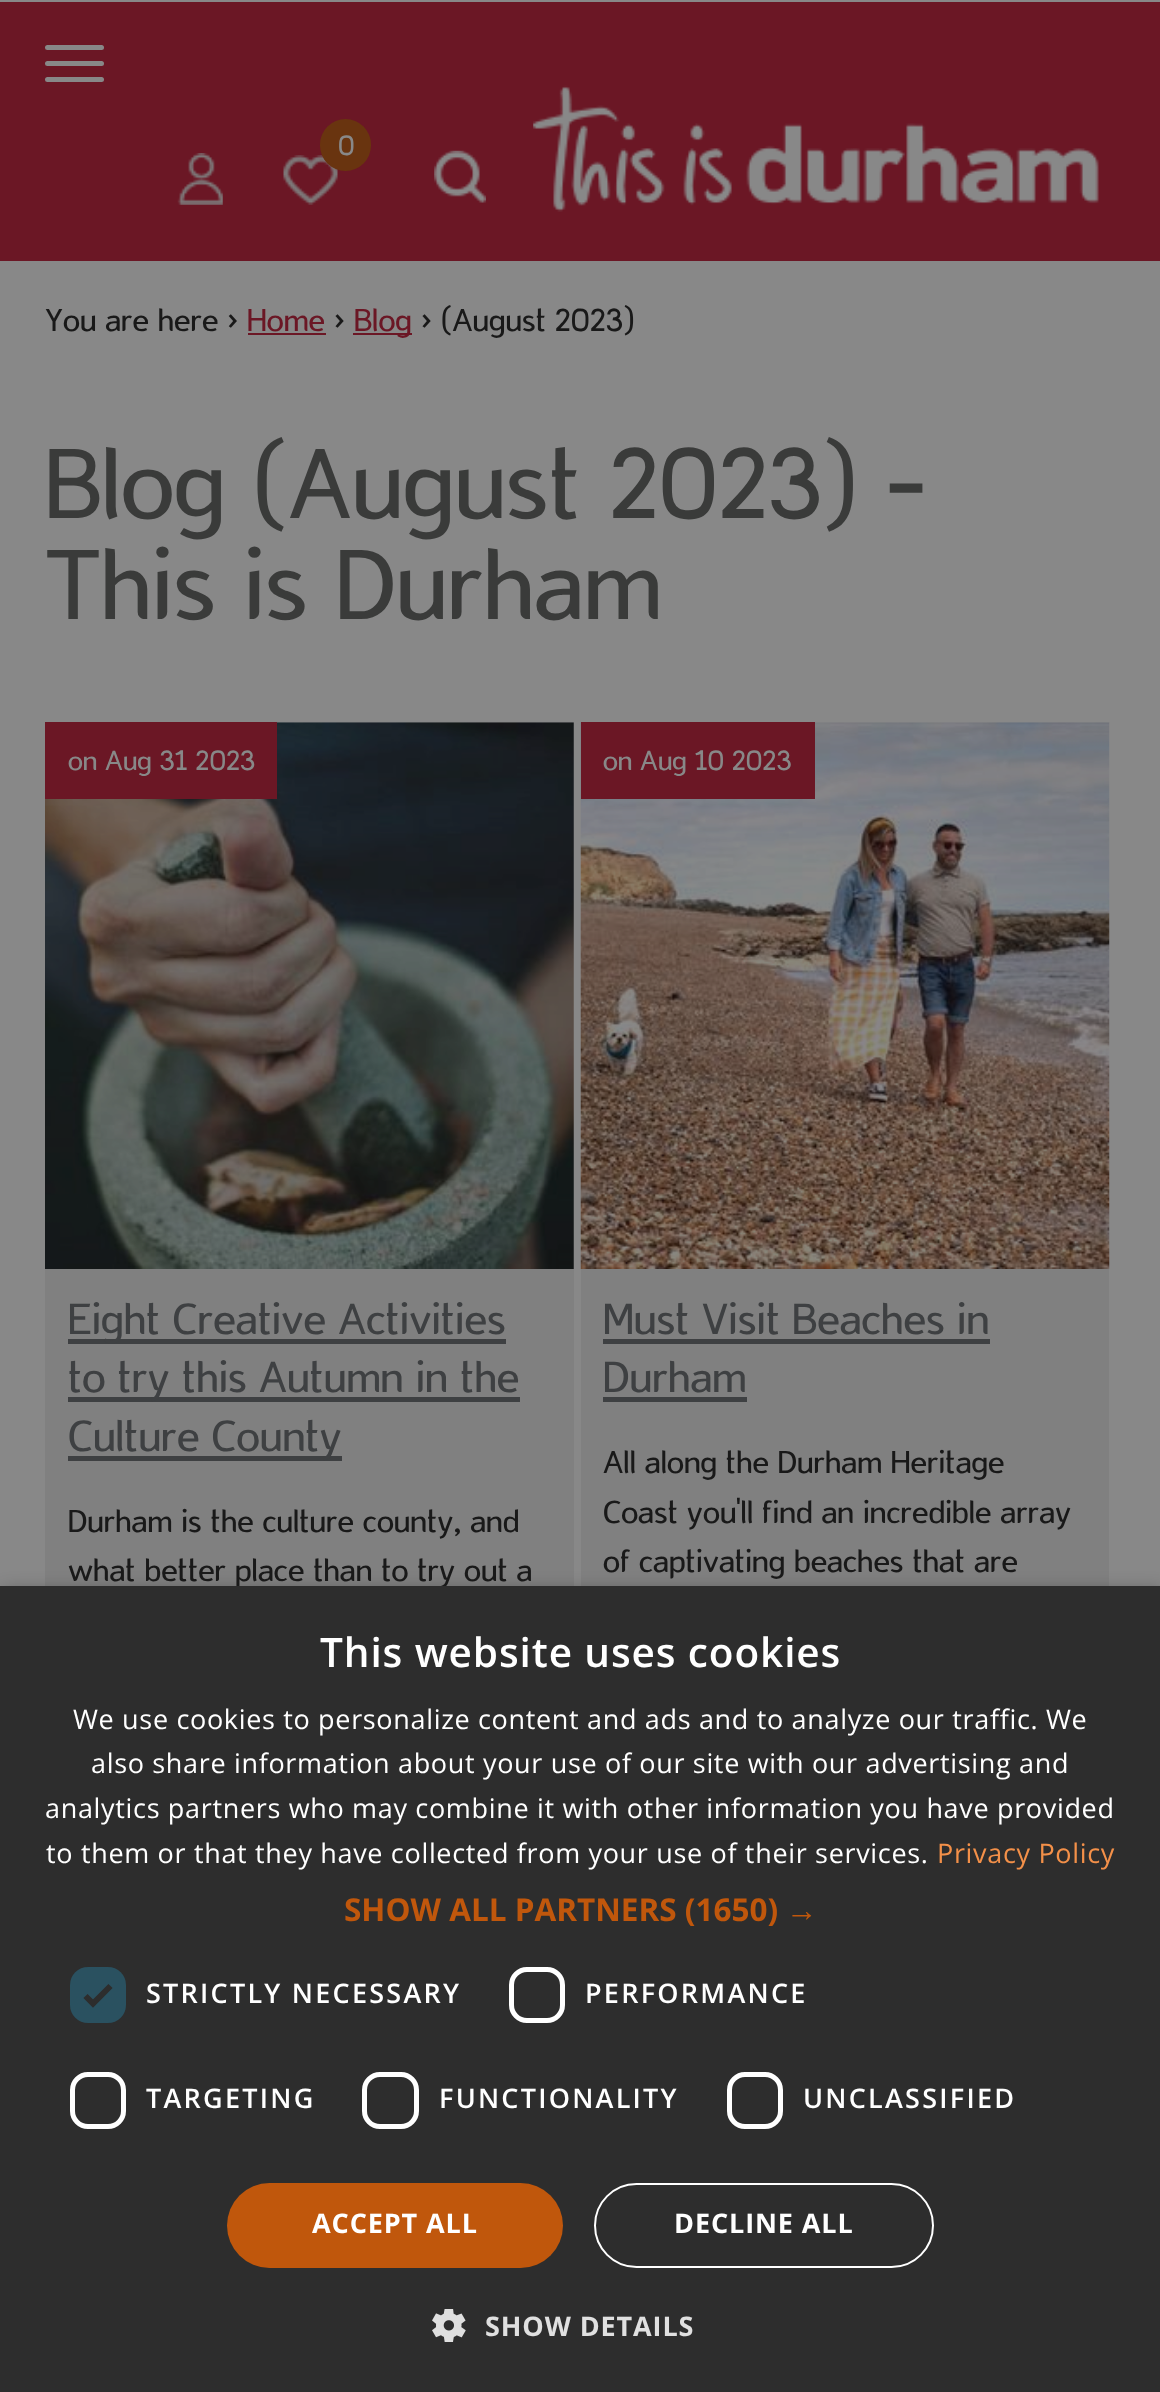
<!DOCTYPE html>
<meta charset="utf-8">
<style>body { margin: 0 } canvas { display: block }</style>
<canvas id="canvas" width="1160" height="2392"></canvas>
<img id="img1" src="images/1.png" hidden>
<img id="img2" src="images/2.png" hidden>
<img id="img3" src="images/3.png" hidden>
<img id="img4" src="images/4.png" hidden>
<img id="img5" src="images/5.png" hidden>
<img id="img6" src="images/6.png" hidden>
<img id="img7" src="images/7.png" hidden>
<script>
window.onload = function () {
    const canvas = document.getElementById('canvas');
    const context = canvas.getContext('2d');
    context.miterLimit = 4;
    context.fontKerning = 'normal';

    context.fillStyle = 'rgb(136, 136, 136)';
    context.fillRect(0, 0, 1160, 2392);
    context.fillStyle = 'rgb(107, 23, 37)';
    context.fillRect(0, 2, 1160, 259);
    context.fillStyle = 'rgb(136, 136, 136)';
    context.beginPath();
    context.roundRect(45, 45, 59, 5, 2.5);
    context.fill();
    context.beginPath();
    context.roundRect(45, 61, 59, 5, 2.5);
    context.fill();
    context.beginPath();
    context.roundRect(45, 77, 59, 5, 2.5);
    context.fill();
    context.drawImage(document.getElementById('img1'), 283, 155, 55, 50);
    context.fillStyle = 'rgb(105, 52, 15)';
    context.beginPath();
    context.roundRect(320, 119, 51, 52, 25.5);
    context.fill();
    context.drawImage(document.getElementById('img2'), 533, 85, 566, 127);
    context.drawImage(document.getElementById('img3'), 177, 153, 46, 52);
    context.drawImage(document.getElementById('img4'), 434, 150, 52, 53);
    context.fillStyle = 'rgb(107, 23, 37)';
    context.fillRect(248, 333, 78, 2);
    context.fillRect(353, 333, 59, 2);
    context.drawImage(document.getElementById('img5'), 45, 722, 529, 547);
    context.fillStyle = 'rgb(128, 128, 128)';
    context.fillRect(45, 1269, 529, 317);
    context.fillStyle = 'rgb(107, 23, 37)';
    context.fillRect(45, 722, 232, 77);
    context.fillStyle = 'rgb(62, 64, 66)';
    context.fillRect(68, 1339, 438, 5);
    context.fillRect(68, 1397, 452, 5);
    context.fillRect(68, 1456, 274, 5);
    context.drawImage(document.getElementById('img6'), 580, 722, 530, 547);
    context.fillStyle = 'rgb(128, 128, 128)';
    context.fillRect(581, 1269, 528, 317);
    context.fillStyle = 'rgb(107, 23, 37)';
    context.fillRect(581, 722, 234, 77);
    context.fillStyle = 'rgb(62, 64, 66)';
    context.fillRect(603, 1339, 387, 5);
    context.fillRect(603, 1397, 144, 5);
    context.fillStyle = 'rgba(0, 0, 0, 0.35)';
    context.filter = 'blur(9px)';
    context.beginPath();
    context.rect(2, 1591, 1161, 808);
    context.fill();
    context.filter = 'none';
    context.font = '31.5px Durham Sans';
    context.fillStyle = 'rgb(136, 136, 136)';
    context.fillText('0', 338, 155);
    context.font = '36px Durham Sans';
    context.fillStyle = 'rgb(25, 25, 25)';
    context.fillText('You are here >', 45, 331);
    context.fillStyle = 'rgb(107, 23, 37)';
    context.fillText('Home', 247, 331);
    context.fillStyle = 'rgb(25, 25, 25)';
    context.fillText('>', 334, 331);
    context.fillStyle = 'rgb(107, 23, 37)';
    context.fillText('Blog', 354, 331);
    context.fillStyle = 'rgb(25, 25, 25)';
    context.fillText('> (August 2023)', 421, 331);
    context.font = '112.5px Durham Sans';
    context.fillStyle = 'rgb(58, 59, 58)';
    context.fillText('Blog (August 2023) -', 45, 518);
    context.fillText('This is Durham', 45, 619);
    context.font = '31.5px Durham Sans';
    context.fillStyle = 'rgb(136, 136, 136)';
    context.fillText('on Aug 31 2023', 68, 770);
    context.font = '49.5px Durham Sans';
    context.fillStyle = 'rgb(62, 64, 66)';
    context.fillText('Eight Creative Activities', 68, 1334);
    context.fillText('to try this Autumn in the', 68, 1392);
    context.fillText('Culture County', 68, 1451);
    context.font = '36px Durham Sans';
    context.fillStyle = 'rgb(25, 25, 25)';
    context.fillText('Durham is the culture county, and', 68, 1532);
    context.fillText('what better place than to try out a', 68, 1581);
    context.font = '31.5px Durham Sans';
    context.fillStyle = 'rgb(136, 136, 136)';
    context.fillText('on Aug 10 2023', 603, 770);
    context.font = '49.5px Durham Sans';
    context.fillStyle = 'rgb(62, 64, 66)';
    context.fillText('Must Visit Beaches in', 603, 1334);
    context.fillText('Durham', 603, 1392);
    context.font = '36px Durham Sans';
    context.fillStyle = 'rgb(25, 25, 25)';
    context.fillText('All along the Durham Heritage', 603, 1473);
    context.fillText('Coast you\'ll find an incredible array', 603, 1523);
    context.fillText('of captivating beaches that are', 603, 1572);
    context.fillStyle = 'rgb(45, 45, 45)';
    context.fillRect(0, 1586, 1160, 806);
    context.letterSpacing = '0.9px';
    context.font = '600 40.5px Open Sans';
    context.fillStyle = 'rgb(255, 255, 255)';
    context.fillText('This website uses cookies', 320, 1667);
    context.letterSpacing = '0.67px';
    context.font = '27px Open Sans';
    context.fillText('We use cookies to personalize content and ads and to analyze our traffic. We', 73, 1729);
    context.fillText('also share information about your use of our site with our advertising and', 91, 1773);
    context.fillText('analytics partners who may combine it with other information you have provided', 45, 1818);
    context.fillText('to them or that they have collected from your use of their services.', 46, 1863);
    context.fillStyle = 'rgb(243, 144, 73)';
    context.fillText('Privacy Policy', 937, 1863);
    context.letterSpacing = '0px';
    context.font = 'bold 31.5px Open Sans';
    context.fillStyle = 'rgb(192, 87, 12)';
    context.fillText('SHOW ALL PARTNERS (1650)', 344, 1921);
    context.font = 'bold 31.5px Liberation Sans';
    context.fillText('→', 786, 1921);
    context.fillStyle = 'rgb(42, 81, 96)';
    context.beginPath();
    context.roundRect(70, 1967, 56, 56, 18);
    context.fill();
    context.beginPath();
    context.moveTo(85.5, 1996);
    context.lineTo(93, 2003.5);
    context.lineTo(110.5, 1986);
    context.strokeStyle = 'rgb(45, 45, 45)';
    context.lineWidth = 5.9;
    context.stroke();
    context.letterSpacing = '2.25px';
    context.font = '600 27px Open Sans';
    context.fillStyle = 'rgb(255, 255, 255)';
    context.fillText('STRICTLY NECESSARY', 146, 2003);
    context.beginPath();
    context.roundRect(511.5, 1969.5, 51, 51, 15.5);
    context.strokeStyle = 'rgb(255, 255, 255)';
    context.lineWidth = 5;
    context.stroke();
    context.fillText('PERFORMANCE', 585, 2003);
    context.beginPath();
    context.roundRect(72.5, 2074.5, 51, 52, 15.5);
    context.stroke();
    context.fillText('TARGETING', 146, 2108);
    context.beginPath();
    context.roundRect(364.5, 2074.5, 52, 52, 15.5);
    context.stroke();
    context.fillText('FUNCTIONALITY', 439, 2108);
    context.beginPath();
    context.roundRect(729.5, 2074.5, 51, 52, 15.5);
    context.stroke();
    context.fillText('UNCLASSIFIED', 803, 2108);
    context.fillStyle = 'rgb(192, 87, 12)';
    context.beginPath();
    context.roundRect(227, 2183, 336, 85, 42.5);
    context.fill();
    context.letterSpacing = '0.9px';
    context.font = 'bold 27px Open Sans';
    context.fillStyle = 'rgb(255, 255, 255)';
    context.fillText('ACCEPT ALL', 312, 2233);
    context.beginPath();
    context.roundRect(595, 2184, 338, 83, 41.5);
    context.lineWidth = 2;
    context.stroke();
    context.fillText('DECLINE ALL', 674, 2233);
    context.drawImage(document.getElementById('img7'), 432, 2309, 34, 33);
    context.fillStyle = 'rgb(224, 224, 224)';
    context.fillText('SHOW DETAILS', 485, 2336);
};
</script>
